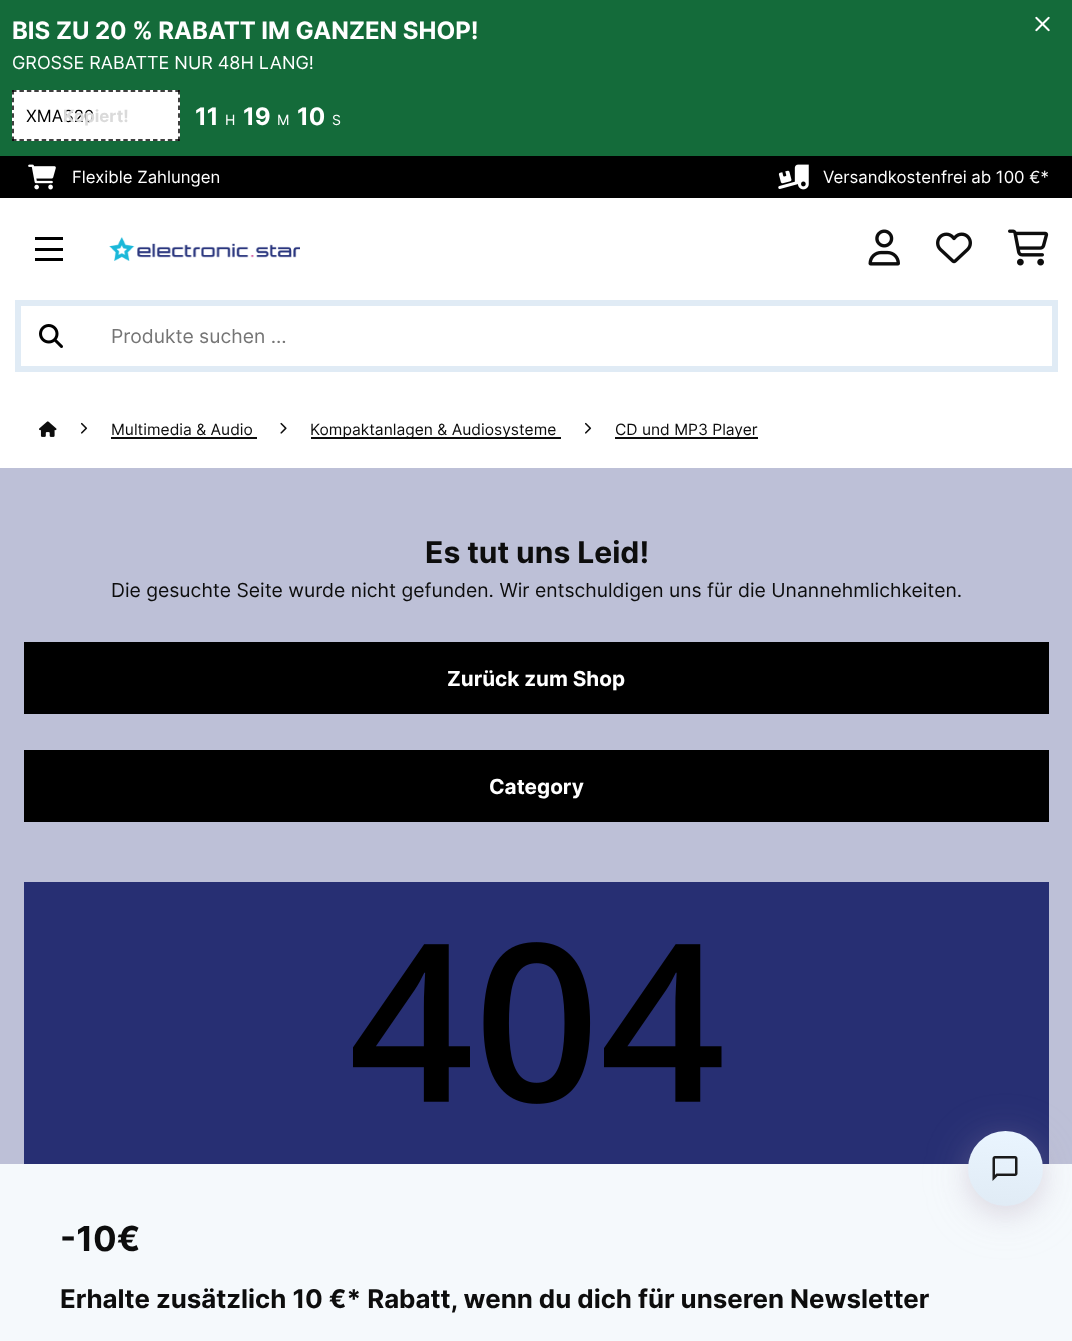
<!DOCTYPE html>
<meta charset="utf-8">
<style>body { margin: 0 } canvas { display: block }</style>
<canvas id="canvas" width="1072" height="1341"></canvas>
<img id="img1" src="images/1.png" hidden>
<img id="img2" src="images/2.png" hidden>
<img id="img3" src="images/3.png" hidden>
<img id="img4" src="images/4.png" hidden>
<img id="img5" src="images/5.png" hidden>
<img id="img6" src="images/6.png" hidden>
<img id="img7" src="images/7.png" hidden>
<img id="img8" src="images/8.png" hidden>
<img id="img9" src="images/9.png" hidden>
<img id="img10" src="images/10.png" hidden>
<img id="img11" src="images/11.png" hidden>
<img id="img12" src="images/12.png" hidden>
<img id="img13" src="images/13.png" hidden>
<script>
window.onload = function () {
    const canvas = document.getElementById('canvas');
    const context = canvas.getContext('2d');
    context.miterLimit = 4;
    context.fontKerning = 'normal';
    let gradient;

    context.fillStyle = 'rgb(255, 255, 255)';
    context.fillRect(0, 0, 1072, 1341);
    context.fillStyle = 'rgb(20, 107, 58)';
    context.fillRect(0, 0, 1072, 156);
    context.fillStyle = 'rgb(255, 255, 255)';
    context.fillRect(12, 90, 168, 51);
    context.beginPath();
    context.moveTo(12, 91);
    context.lineTo(180, 91);
    context.strokeStyle = 'rgb(0, 0, 0)';
    context.lineWidth = 1.5;
    context.setLineDash([4.5, 2.92]);
    context.stroke();
    context.beginPath();
    context.moveTo(179, 90);
    context.lineTo(179, 141);
    context.setLineDash([4.5, 3.25]);
    context.stroke();
    context.beginPath();
    context.moveTo(12, 140);
    context.lineTo(180, 140);
    context.setLineDash([4.5, 2.92]);
    context.stroke();
    context.beginPath();
    context.moveTo(13, 90);
    context.lineTo(13, 141);
    context.setLineDash([4.5, 3.25]);
    context.stroke();
    context.drawImage(document.getElementById('img1'), 1035, 16, 15, 16);
    context.fillStyle = 'rgb(0, 0, 0)';
    context.fillRect(0, 156, 1072, 42);
    context.drawImage(document.getElementById('img2'), 28, 164, 28, 26);
    context.drawImage(document.getElementById('img3'), 778, 164, 31, 26);
    context.fillRect(35, 237, 28, 3);
    context.fillRect(35, 248, 28, 3);
    context.fillRect(35, 258, 28, 3);
    context.drawImage(document.getElementById('img4'), 109, 237, 191, 24);
    context.drawImage(document.getElementById('img5'), 868, 229, 32, 37);
    context.drawImage(document.getElementById('img6'), 936, 232, 36, 32);
    context.drawImage(document.getElementById('img7'), 1008, 229, 41, 37);
    context.strokeStyle = 'rgb(224, 235, 245)';
    context.lineWidth = 6;
    context.setLineDash([]);
    context.strokeRect(18, 303, 1037, 66);
    context.drawImage(document.getElementById('img8'), 39, 324, 24, 24);
    context.drawImage(document.getElementById('img9'), 39, 421, 18, 16);
    context.drawImage(document.getElementById('img10'), 81, 422, 7, 12);
    context.fillStyle = 'rgb(13, 13, 13)';
    context.fillRect(111, 437, 146, 2);
    context.drawImage(document.getElementById('img11'), 280, 422, 7, 12);
    context.fillRect(311, 437, 250, 2);
    context.drawImage(document.getElementById('img10'), 585, 422, 7, 12);
    context.fillRect(615, 437, 143, 2);
    context.fillStyle = 'rgb(189, 192, 215)';
    context.fillRect(0, 468, 1072, 696);
    context.fillStyle = 'rgb(0, 0, 0)';
    context.fillRect(24, 642, 1025, 72);
    context.fillRect(24, 750, 1025, 72);
    context.fillStyle = 'rgb(39, 47, 115)';
    context.fillRect(24, 882, 1025, 282);
    context.drawImage(document.getElementById('img12'), 353, 942, 369, 162);
    context.fillStyle = 'rgb(245, 249, 252)';
    context.fillRect(0, 1164, 1072, 177);
    context.fillStyle = 'rgba(203, 195, 212, 0.2)';
    context.filter = 'blur(24px)';
    context.beginPath();
    context.roundRect(968, 1139, 75, 75, 37.5);
    context.fill();
    context.filter = 'none';
    context.fillStyle = 'rgba(151, 124, 156, 0.2)';
    context.filter = 'blur(13.5px)';
    context.beginPath();
    context.roundRect(968, 1139, 75, 75, 37.5);
    context.fill();
    context.filter = 'none';
    gradient = context.createLinearGradient(1009, 1128, 1001, 1209);
    gradient.addColorStop(0, 'rgb(234, 245, 255)');
    gradient.addColorStop(1, 'rgb(224, 235, 245)');
    context.fillStyle = gradient;
    context.beginPath();
    context.arc(1005.5, 1168.5, 37.5, 0, 2 * Math.PI);
    context.fill();
    context.drawImage(document.getElementById('img13'), 992, 1156, 26, 25);
    context.font = 'bold 24px Inter';
    context.fillStyle = 'rgb(255, 255, 255)';
    context.fillText('BIS ZU 20 % RABATT IM GANZEN SHOP!', 12, 39);
    context.font = '18px Inter';
    context.fillText('GROSSE RABATTE NUR 48H LANG!', 12, 69);
    context.font = '16.75px Inter';
    context.fillStyle = 'rgb(0, 0, 0)';
    context.fillText('XMAS20', 26, 122);
    context.font = 'bold 16.75px Inter';
    context.fillStyle = 'rgb(218, 218, 218)';
    context.fillText('Kopiert!', 63, 122);
    context.font = 'bold 24px Inter';
    context.fillStyle = 'rgb(255, 255, 255)';
    context.fillText('11', 195, 125);
    context.font = '14px Inter';
    context.fillText('H', 225, 125);
    context.font = 'bold 24px Inter';
    context.fillText('19', 243, 125);
    context.font = '14px Inter';
    context.fillText('M', 277, 125);
    context.font = 'bold 24px Inter';
    context.fillText('10', 297, 125);
    context.font = '14px Inter';
    context.fillText('S', 332, 125);
    context.font = '16.75px Inter';
    context.fillText('Flexible Zahlungen', 72, 183);
    context.fillText('Versandkostenfrei ab 100 €*', 823, 183);
    context.font = '19.35px Inter';
    context.fillStyle = 'rgb(117, 117, 117)';
    context.fillText('Produkte suchen ...', 111, 343);
    context.font = '15.6px Inter';
    context.fillStyle = 'rgb(13, 13, 13)';
    context.fillText('Multimedia & Audio', 111, 435);
    context.fillText('Kompaktanlagen & Audiosysteme', 310, 435);
    context.fillText('CD und MP3 Player', 615, 435);
    context.font = 'bold 30px Inter';
    context.fillText('Es tut uns Leid!', 425, 563);
    context.font = '19.35px Inter';
    context.fillText('Die gesuchte Seite wurde nicht gefunden. Wir entschuldigen uns für die Unannehmlichkeiten.', 111, 597);
    context.font = 'bold 20.75px Inter';
    context.fillStyle = 'rgb(255, 255, 255)';
    context.fillText('Zurück zum Shop', 447, 686);
    context.fillText('Category', 489, 794);
    context.font = 'bold 34.5px Inter';
    context.fillStyle = 'rgb(13, 13, 13)';
    context.fillText('-10€', 60, 1251);
    context.font = 'bold 25.85px Inter';
    context.fillText('Erhalte zusätzlich 10 €* Rabatt, wenn du dich für unseren Newsletter', 60, 1308);
};
</script>
